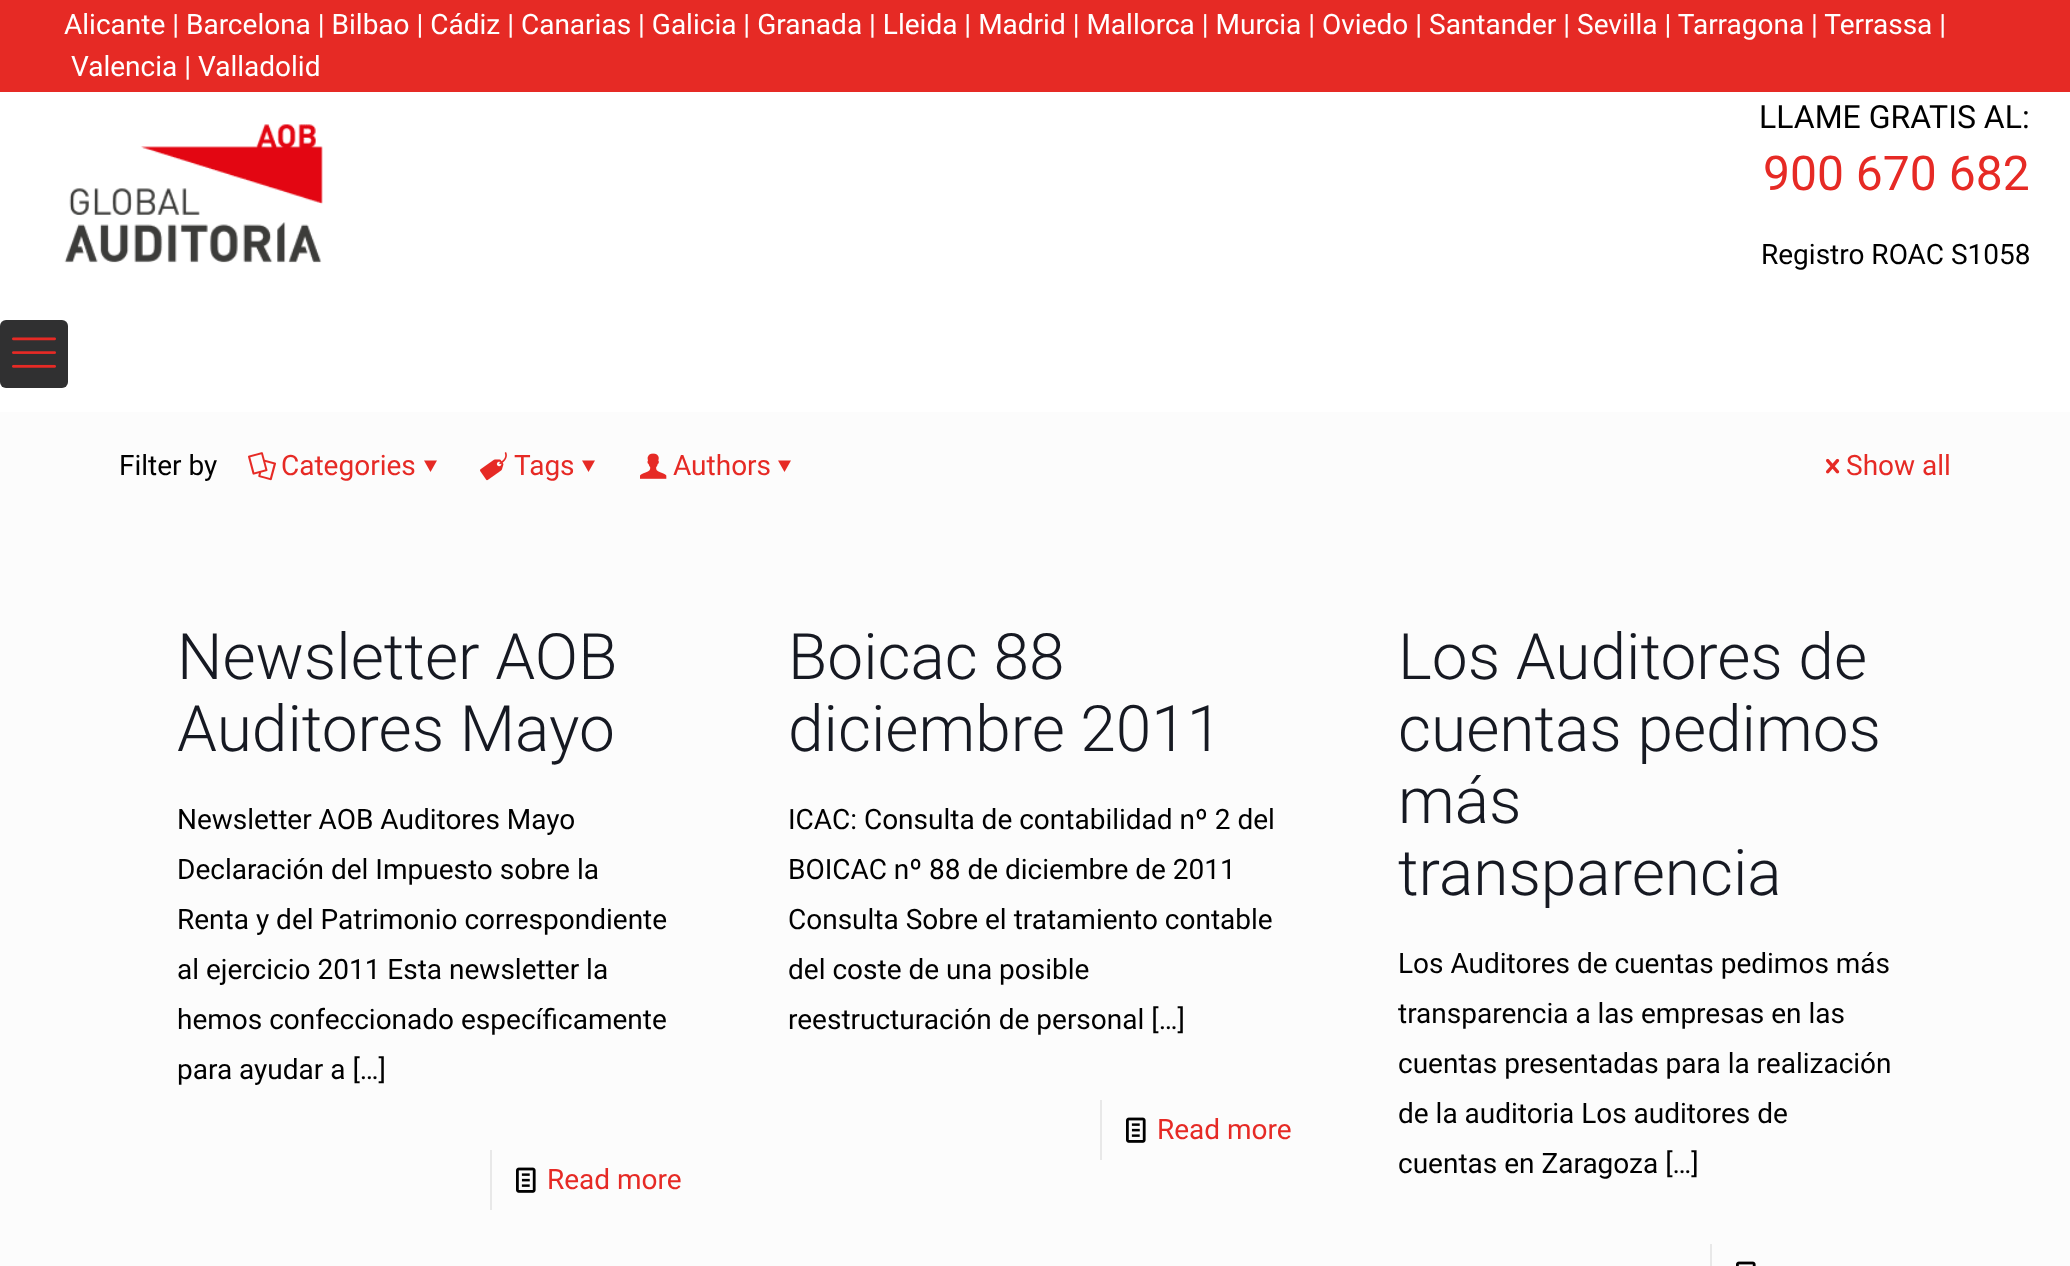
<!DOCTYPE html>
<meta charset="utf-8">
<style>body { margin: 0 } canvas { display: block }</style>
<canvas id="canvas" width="2070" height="1266"></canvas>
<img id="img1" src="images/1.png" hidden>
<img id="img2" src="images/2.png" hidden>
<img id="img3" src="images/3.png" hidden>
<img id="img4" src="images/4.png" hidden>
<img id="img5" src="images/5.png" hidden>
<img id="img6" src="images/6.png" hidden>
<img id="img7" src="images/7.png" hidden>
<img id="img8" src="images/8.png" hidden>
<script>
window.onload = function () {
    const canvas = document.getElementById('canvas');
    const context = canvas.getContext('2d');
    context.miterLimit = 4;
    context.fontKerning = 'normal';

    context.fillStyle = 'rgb(252, 252, 252)';
    context.fillRect(0, 0, 2070, 1266);
    context.fillStyle = 'rgb(230, 42, 37)';
    context.fillRect(0, 0, 2070, 92);
    context.fillStyle = 'rgb(255, 255, 255)';
    context.fillRect(0, 92, 2070, 320);
    context.drawImage(document.getElementById('img1'), 64, 124, 259, 139);
    context.fillStyle = 'rgb(48, 48, 49)';
    context.beginPath();
    context.roundRect(0, 320, 68, 68, 6);
    context.fill();
    context.drawImage(document.getElementById('img2'), 12, 337, 44, 31);
    context.drawImage(document.getElementById('img3'), 248, 452, 28, 29);
    context.fillStyle = 'rgb(230, 42, 37)';
    context.beginPath();
    context.moveTo(437, 460.5);
    context.lineTo(430.5, 472);
    context.lineTo(424, 460.5);
    context.closePath();
    context.fill();
    context.drawImage(document.getElementById('img4'), 480, 452, 27, 29);
    context.beginPath();
    context.moveTo(595, 460.5);
    context.lineTo(588.5, 472);
    context.lineTo(582, 460.5);
    context.closePath();
    context.fill();
    context.drawImage(document.getElementById('img5'), 640, 453, 27, 26);
    context.beginPath();
    context.moveTo(791, 460.5);
    context.lineTo(784.5, 472);
    context.lineTo(778, 460.5);
    context.closePath();
    context.fill();
    context.drawImage(document.getElementById('img6'), 1826, 458, 14, 16);
    context.fillStyle = 'rgb(232, 232, 232)';
    context.fillRect(490, 1150, 2, 60);
    context.drawImage(document.getElementById('img7'), 516, 1167, 20, 26);
    context.fillRect(1100, 1100, 2, 60);
    context.drawImage(document.getElementById('img7'), 1126, 1117, 20, 26);
    context.fillRect(1710, 1244, 2, 22);
    context.drawImage(document.getElementById('img8'), 1736, 1261, 20, 5);
    context.font = '28px Roboto';
    context.fillStyle = 'rgb(255, 255, 255)';
    context.fillText('Alicante | Barcelona | Bilbao | Cádiz | Canarias | Galicia | Granada | Lleida | Madrid | Mallorca | Murcia | Oviedo | Santander | Sevilla | Tarragona | Terrassa |', 64, 34);
    context.fillText('Valencia | Valladolid', 71, 76);
    context.font = '32px Roboto';
    context.fillStyle = 'rgb(0, 0, 0)';
    context.fillText('LLAME GRATIS AL:', 1759, 128);
    context.font = '48px Roboto';
    context.fillStyle = 'rgb(230, 42, 37)';
    context.fillText('900 670 682', 1763, 190);
    context.font = '28px Roboto';
    context.fillStyle = 'rgb(0, 0, 0)';
    context.fillText('Registro ROAC S1058', 1761, 264);
    context.fillText('Filter by', 119, 475);
    context.fillStyle = 'rgb(230, 42, 37)';
    context.fillText('Categories', 281, 475);
    context.fillText('Tags', 514, 475);
    context.fillText('Authors', 673, 475);
    context.fillText('Show all', 1846, 475);
    context.font = '300 64px Roboto';
    context.fillStyle = 'rgb(22, 25, 34)';
    context.fillText('Newsletter AOB', 177, 679);
    context.fillText('Auditores Mayo', 177, 751);
    context.font = '28px Roboto';
    context.fillStyle = 'rgb(0, 0, 0)';
    context.fillText('Newsletter AOB Auditores Mayo', 177, 829);
    context.fillText('Declaración del Impuesto sobre la', 177, 879);
    context.fillText('Renta y del Patrimonio correspondiente', 177, 929);
    context.fillText('al ejercicio 2011 Esta newsletter la', 177, 979);
    context.fillText('hemos confeccionado específicamente', 177, 1029);
    context.fillText('para ayudar a […]', 177, 1079);
    context.fillStyle = 'rgb(230, 42, 37)';
    context.fillText('Read more', 547, 1189);
    context.font = '300 64px Roboto';
    context.fillStyle = 'rgb(22, 25, 34)';
    context.fillText('Boicac 88', 788, 679);
    context.fillText('diciembre 2011', 788, 751);
    context.font = '28px Roboto';
    context.fillStyle = 'rgb(0, 0, 0)';
    context.fillText('ICAC: Consulta de contabilidad nº 2 del', 788, 829);
    context.fillText('BOICAC nº 88 de diciembre de 2011', 788, 879);
    context.fillText('Consulta Sobre el tratamiento contable', 788, 929);
    context.fillText('del coste de una posible', 788, 979);
    context.fillText('reestructuración de personal […]', 788, 1029);
    context.fillStyle = 'rgb(230, 42, 37)';
    context.fillText('Read more', 1157, 1139);
    context.font = '300 64px Roboto';
    context.fillStyle = 'rgb(22, 25, 34)';
    context.fillText('Los Auditores de', 1398, 679);
    context.fillText('cuentas pedimos', 1398, 751);
    context.fillText('más', 1398, 823);
    context.fillText('transparencia', 1398, 895);
    context.font = '28px Roboto';
    context.fillStyle = 'rgb(0, 0, 0)';
    context.fillText('Los Auditores de cuentas pedimos más', 1398, 973);
    context.fillText('transparencia a las empresas en las', 1398, 1023);
    context.fillText('cuentas presentadas para la realización', 1398, 1073);
    context.fillText('de la auditoria Los auditores de', 1398, 1123);
    context.fillText('cuentas en Zaragoza […]', 1398, 1173);
};
</script>
